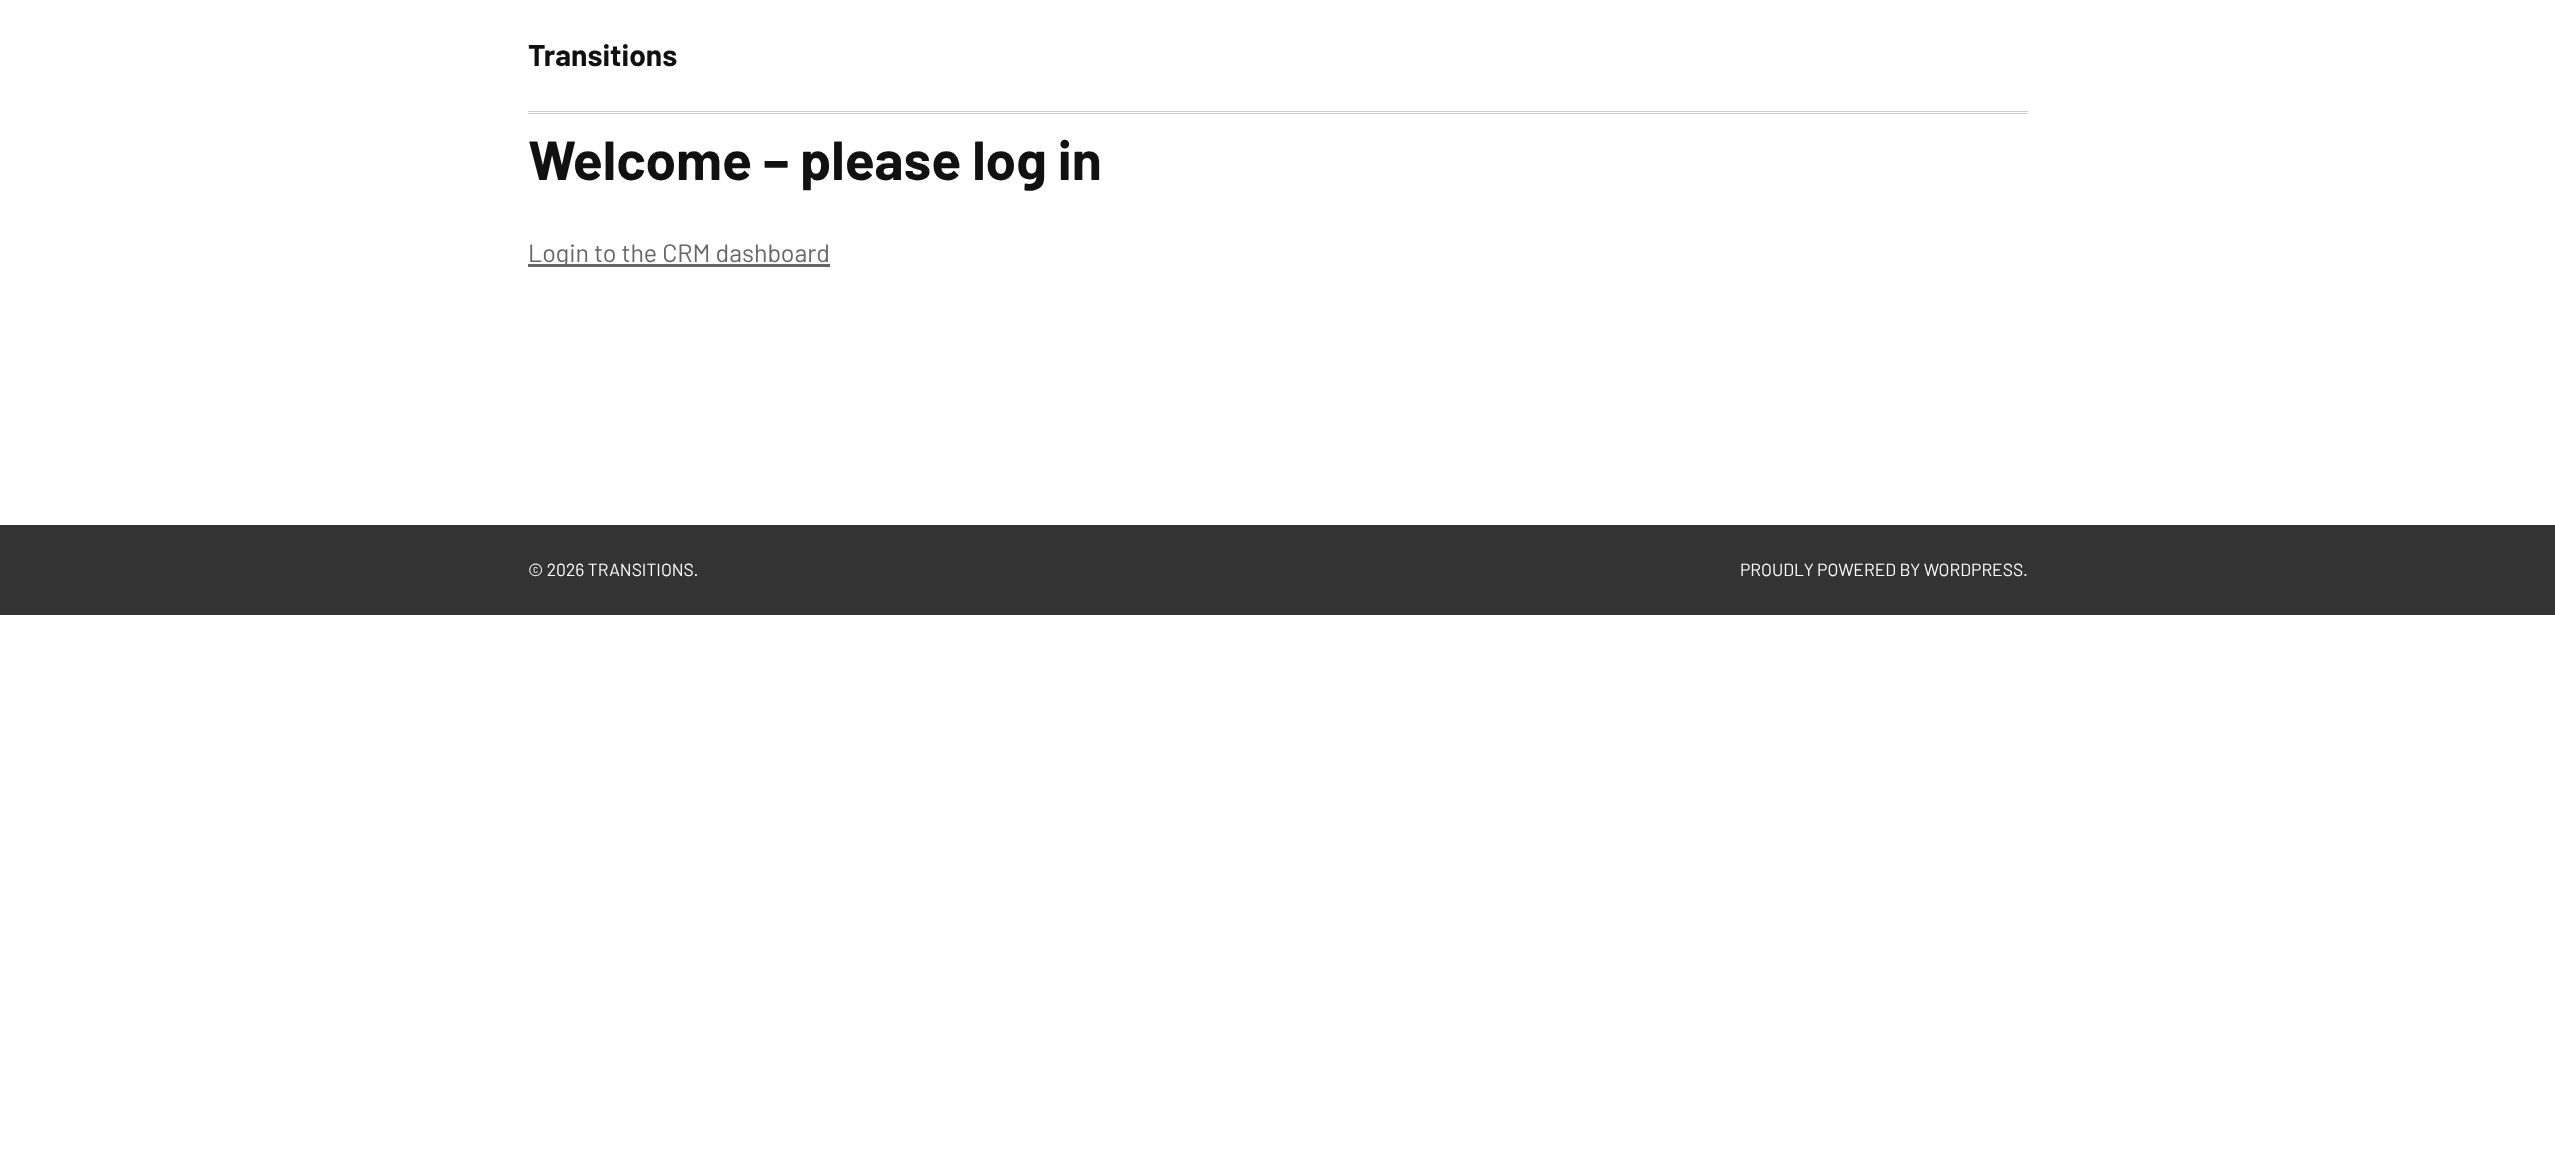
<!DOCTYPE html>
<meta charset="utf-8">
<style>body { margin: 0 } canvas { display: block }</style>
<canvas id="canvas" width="2555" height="1162"></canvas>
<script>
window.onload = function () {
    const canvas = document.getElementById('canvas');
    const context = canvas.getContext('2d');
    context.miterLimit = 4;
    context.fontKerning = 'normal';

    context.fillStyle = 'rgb(255, 255, 255)';
    context.fillRect(0, 0, 2555, 1162);
    context.fillStyle = 'rgb(204, 204, 204)';
    context.fillRect(528, 111, 1500, 1);
    context.fillRect(528, 113, 1500, 1);
    context.fillStyle = 'rgb(102, 102, 102)';
    context.fillRect(528, 264, 302, 3);
    context.fillStyle = 'rgb(51, 51, 51)';
    context.fillRect(0, 525, 2555, 90);
    context.font = 'bold 30px Barlow';
    context.fillStyle = 'rgb(17, 17, 17)';
    context.fillText('Transitions', 528, 66);
    context.font = 'bold 55px Barlow';
    context.fillText('Welcome – please log in', 528, 180);
    context.font = '25px Barlow';
    context.fillStyle = 'rgb(102, 102, 102)';
    context.fillText('Login to the CRM dashboard', 528, 262);
    context.font = '17.5px Barlow';
    context.fillStyle = 'rgb(255, 255, 255)';
    context.fillText('© 2026 TRANSITIONS.', 528, 576);
    context.fillText('PROUDLY POWERED BY WORDPRESS.', 1740, 576);
};
</script>
